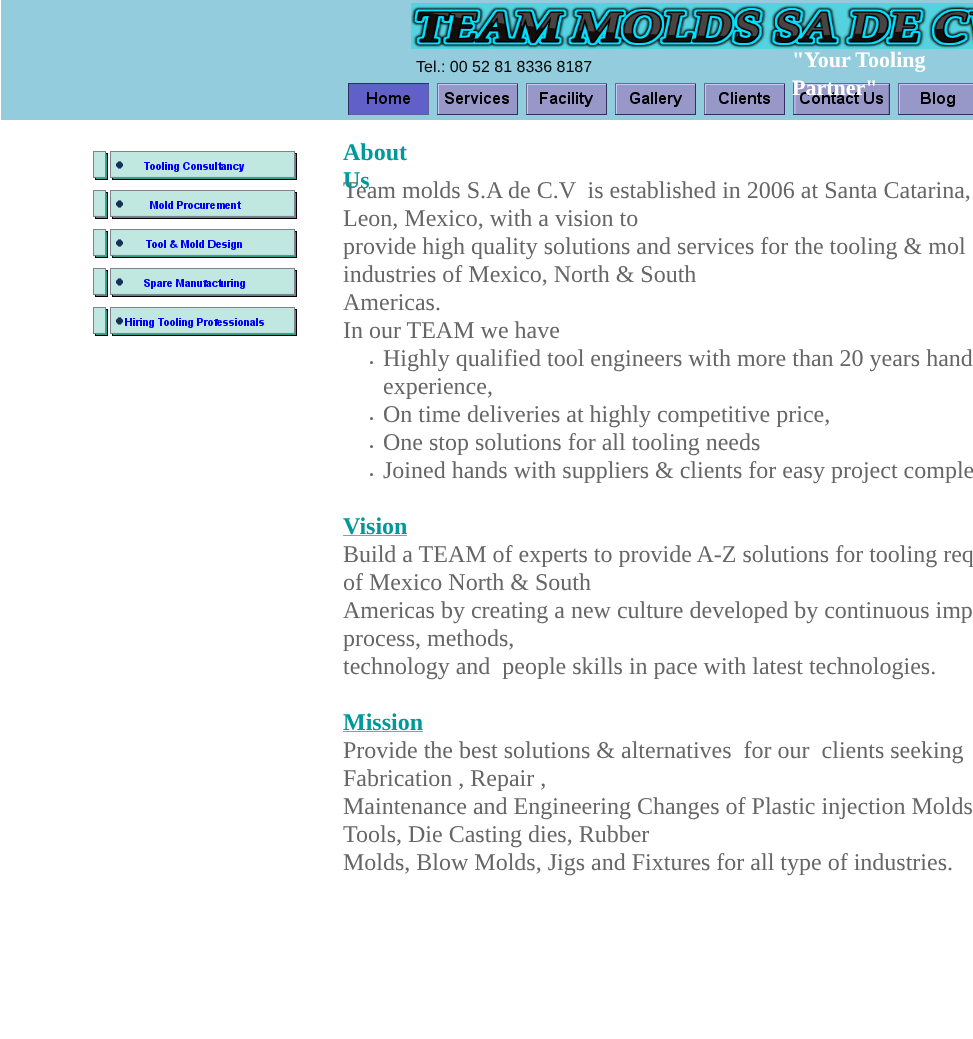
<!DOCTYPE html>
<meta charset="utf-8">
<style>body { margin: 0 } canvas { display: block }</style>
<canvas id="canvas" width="973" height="1039"></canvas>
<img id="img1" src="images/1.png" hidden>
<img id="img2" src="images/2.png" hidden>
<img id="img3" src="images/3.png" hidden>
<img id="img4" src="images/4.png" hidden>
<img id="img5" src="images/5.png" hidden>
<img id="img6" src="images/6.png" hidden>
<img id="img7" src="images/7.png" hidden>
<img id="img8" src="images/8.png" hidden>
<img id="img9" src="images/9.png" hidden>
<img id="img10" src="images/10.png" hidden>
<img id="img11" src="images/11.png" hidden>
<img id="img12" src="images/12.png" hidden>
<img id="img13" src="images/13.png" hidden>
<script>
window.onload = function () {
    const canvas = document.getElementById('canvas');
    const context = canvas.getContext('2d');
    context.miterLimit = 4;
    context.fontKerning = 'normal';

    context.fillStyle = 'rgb(255, 255, 255)';
    context.fillRect(0, 0, 973, 1039);
    context.fillStyle = 'rgb(147, 205, 221)';
    context.fillRect(1, 0, 972, 120);
    context.drawImage(document.getElementById('img1'), 411, 3, 562, 46);
    context.drawImage(document.getElementById('img2'), 348, 83, 81, 32);
    context.drawImage(document.getElementById('img3'), 437, 83, 81, 32);
    context.drawImage(document.getElementById('img4'), 526, 83, 81, 32);
    context.drawImage(document.getElementById('img5'), 615, 83, 81, 32);
    context.drawImage(document.getElementById('img6'), 704, 83, 81, 32);
    context.drawImage(document.getElementById('img7'), 793, 83, 97, 32);
    context.drawImage(document.getElementById('img8'), 898, 83, 75, 32);
    context.drawImage(document.getElementById('img9'), 93, 151, 204, 29);
    context.drawImage(document.getElementById('img10'), 93, 190, 204, 29);
    context.drawImage(document.getElementById('img11'), 93, 229, 204, 29);
    context.drawImage(document.getElementById('img12'), 93, 268, 204, 29);
    context.drawImage(document.getElementById('img13'), 93, 307, 204, 29);
    context.fillStyle = 'rgb(102, 102, 102)';
    context.beginPath();
    context.arc(371.5, 362.5, 1.5, 0, 2 * Math.PI);
    context.fill();
    context.beginPath();
    context.arc(371.5, 418.5, 1.5, 0, 2 * Math.PI);
    context.fill();
    context.beginPath();
    context.arc(371.5, 446.5, 1.5, 0, 2 * Math.PI);
    context.fill();
    context.beginPath();
    context.arc(371.5, 474.5, 1.5, 0, 2 * Math.PI);
    context.fill();
    context.fillStyle = 'rgb(153, 153, 153)';
    context.fillRect(343, 535, 64, 1);
    context.fillRect(343, 731, 80, 1);
    context.font = '16px Liberation Sans';
    context.fillStyle = 'rgb(0, 0, 0)';
    context.fillText('Tel.: 00 52 81 8336 8187', 416, 72);
    context.font = 'bold 22px Liberation Serif';
    context.fillStyle = 'rgb(255, 255, 255)';
    context.fillText('"Your Tooling', 792, 67);
    context.fillText('Partner"', 792, 95);
    context.font = 'bold 24px Liberation Serif';
    context.fillStyle = 'rgb(0, 153, 153)';
    context.fillText('About', 343, 160);
    context.font = '24px Liberation Serif';
    context.fillStyle = 'rgb(102, 102, 102)';
    context.fillText('Team molds S.A de C.V  is established in 2006 at Santa Catarina,', 343, 198);
    context.font = 'bold 24px Liberation Serif';
    context.fillStyle = 'rgb(0, 153, 153)';
    context.fillText('Us', 343, 188);
    context.font = '24px Liberation Serif';
    context.fillStyle = 'rgb(102, 102, 102)';
    context.fillText('Leon, Mexico, with a vision to', 343, 226);
    context.fillText('provide high quality solutions and services for the tooling & mol', 343, 254);
    context.fillText('industries of Mexico, North & South', 343, 282);
    context.fillText('Americas.', 343, 310);
    context.fillText('In our TEAM we have', 343, 338);
    context.fillText('Highly qualified tool engineers with more than 20 years hand', 383, 366);
    context.fillText('experience,', 383, 394);
    context.fillText('On time deliveries at highly competitive price,', 383, 422);
    context.fillText('One stop solutions for all tooling needs', 383, 450);
    context.fillText('Joined hands with suppliers & clients for easy project comple', 383, 478);
    context.font = 'bold 24px Liberation Serif';
    context.fillStyle = 'rgb(0, 153, 153)';
    context.fillText('Vision', 343, 534);
    context.font = '24px Liberation Serif';
    context.fillStyle = 'rgb(102, 102, 102)';
    context.fillText('Build a TEAM of experts to provide A-Z solutions for tooling req', 343, 562);
    context.fillText('of Mexico North & South', 343, 590);
    context.fillText('Americas by creating a new culture developed by continuous imp', 343, 618);
    context.fillText('process, methods,', 343, 646);
    context.fillText('technology and  people skills in pace with latest technologies.', 343, 674);
    context.font = 'bold 24px Liberation Serif';
    context.fillStyle = 'rgb(0, 153, 153)';
    context.fillText('Mission', 343, 730);
    context.font = '24px Liberation Serif';
    context.fillStyle = 'rgb(102, 102, 102)';
    context.fillText('Provide the best solutions & alternatives  for our  clients seeking', 343, 758);
    context.fillText('Fabrication , Repair ,', 343, 786);
    context.fillText('Maintenance and Engineering Changes of Plastic injection Molds', 343, 814);
    context.fillText('Tools, Die Casting dies, Rubber', 343, 842);
    context.fillText('Molds, Blow Molds, Jigs and Fixtures for all type of industries.', 343, 870);
};
</script>
